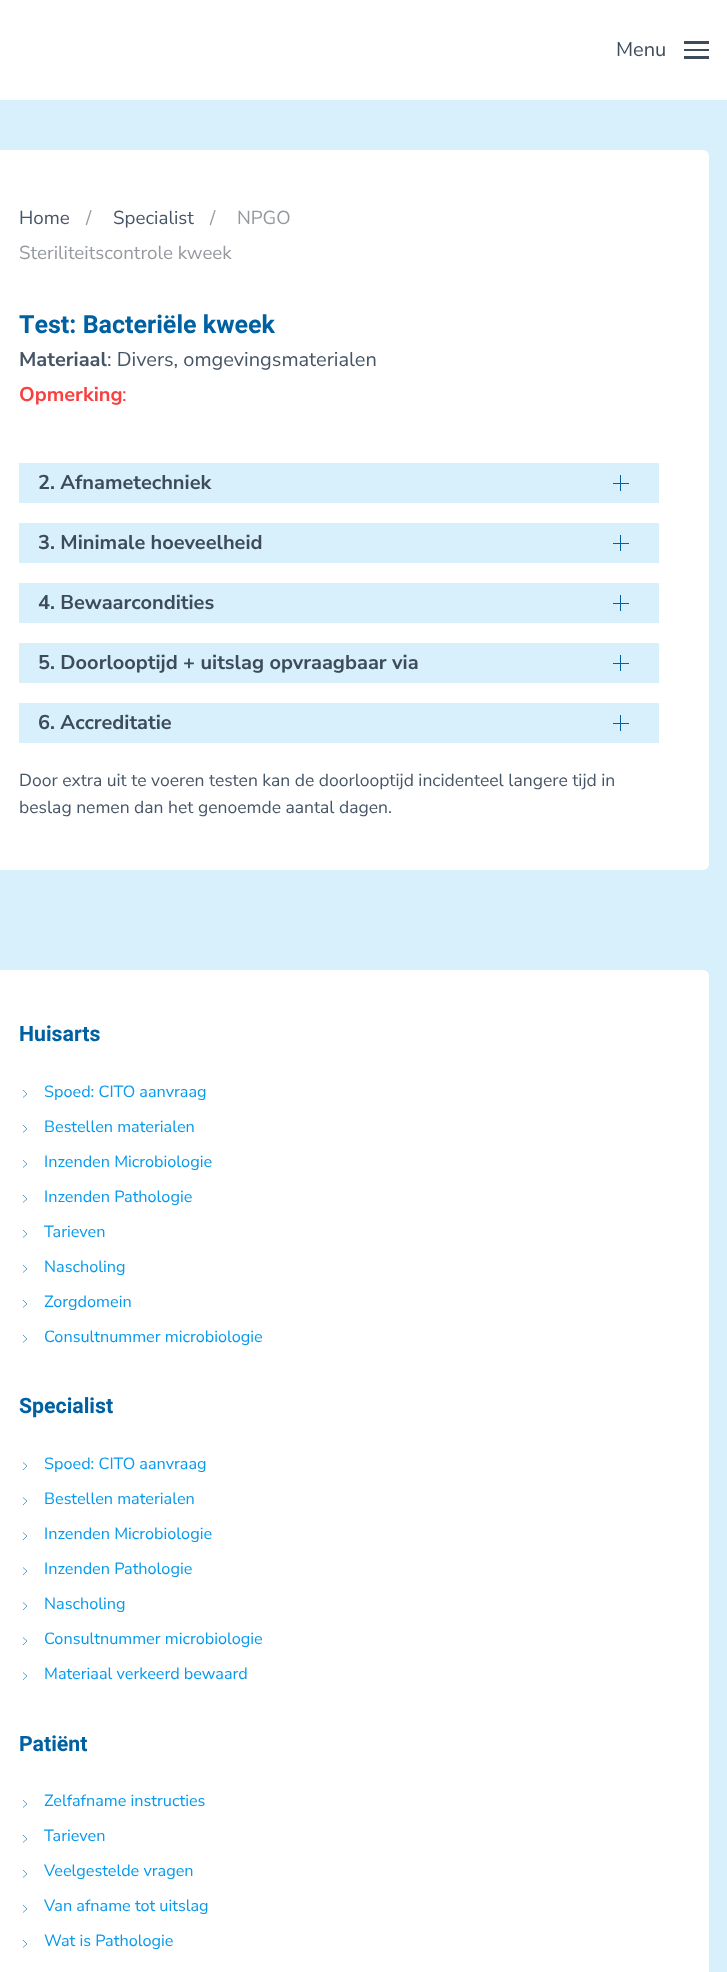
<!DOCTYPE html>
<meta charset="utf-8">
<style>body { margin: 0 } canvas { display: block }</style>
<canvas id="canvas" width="727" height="1972"></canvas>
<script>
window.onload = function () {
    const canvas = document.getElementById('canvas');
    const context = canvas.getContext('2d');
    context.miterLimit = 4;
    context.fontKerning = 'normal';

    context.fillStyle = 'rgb(255, 255, 255)';
    context.fillRect(0, 0, 727, 1972);
    context.fillStyle = 'rgb(62, 75, 90)';
    context.fillRect(684, 41, 25, 3);
    context.fillRect(684, 49, 25, 2);
    context.fillRect(684, 56, 25, 3);
    context.fillStyle = 'rgb(215, 240, 252)';
    context.fillRect(0, 100, 727, 1872);
    context.fillStyle = 'rgb(255, 255, 255)';
    context.beginPath();
    context.roundRect(-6, 150, 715, 720, 6);
    context.fill();
    context.fillStyle = 'rgb(215, 240, 252)';
    context.fillRect(19, 463, 640, 40);
    context.fillStyle = 'rgb(0, 97, 162)';
    context.fillRect(613, 483, 16, 1);
    context.fillRect(620, 475, 1, 16);
    context.fillStyle = 'rgb(215, 240, 252)';
    context.fillRect(19, 523, 640, 40);
    context.fillStyle = 'rgb(0, 97, 162)';
    context.fillRect(613, 543, 16, 1);
    context.fillRect(620, 535, 1, 16);
    context.fillStyle = 'rgb(215, 240, 252)';
    context.fillRect(19, 583, 640, 40);
    context.fillStyle = 'rgb(0, 97, 162)';
    context.fillRect(613, 603, 16, 1);
    context.fillRect(620, 595, 1, 16);
    context.fillStyle = 'rgb(215, 240, 252)';
    context.fillRect(19, 643, 640, 40);
    context.fillStyle = 'rgb(0, 97, 162)';
    context.fillRect(613, 663, 16, 1);
    context.fillRect(620, 655, 1, 16);
    context.fillStyle = 'rgb(215, 240, 252)';
    context.fillRect(19, 703, 640, 40);
    context.fillStyle = 'rgb(0, 97, 162)';
    context.fillRect(613, 723, 16, 1);
    context.fillRect(620, 715, 1, 16);
    context.fillStyle = 'rgb(255, 255, 255)';
    context.beginPath();
    context.roundRect(-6, 970, 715, 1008, 6);
    context.fill();
    context.beginPath();
    context.moveTo(23, 1090);
    context.lineTo(27, 1094);
    context.lineTo(23, 1097.5);
    context.strokeStyle = 'rgb(0, 97, 162)';
    context.lineWidth = 0.6;
    context.stroke();
    context.beginPath();
    context.moveTo(23, 1125);
    context.lineTo(27, 1129);
    context.lineTo(23, 1132.5);
    context.stroke();
    context.beginPath();
    context.moveTo(23, 1160);
    context.lineTo(27, 1164);
    context.lineTo(23, 1167.5);
    context.stroke();
    context.beginPath();
    context.moveTo(23, 1195);
    context.lineTo(27, 1199);
    context.lineTo(23, 1202.5);
    context.stroke();
    context.beginPath();
    context.moveTo(23, 1230);
    context.lineTo(27, 1234);
    context.lineTo(23, 1237.5);
    context.stroke();
    context.beginPath();
    context.moveTo(23, 1265);
    context.lineTo(27, 1269);
    context.lineTo(23, 1272.5);
    context.stroke();
    context.beginPath();
    context.moveTo(23, 1300);
    context.lineTo(27, 1304);
    context.lineTo(23, 1307.5);
    context.stroke();
    context.beginPath();
    context.moveTo(23, 1335);
    context.lineTo(27, 1339);
    context.lineTo(23, 1342.5);
    context.stroke();
    context.beginPath();
    context.moveTo(23, 1462.5);
    context.lineTo(27, 1466);
    context.lineTo(23, 1470);
    context.stroke();
    context.beginPath();
    context.moveTo(23, 1497.5);
    context.lineTo(27, 1501);
    context.lineTo(23, 1505);
    context.stroke();
    context.beginPath();
    context.moveTo(23, 1532.5);
    context.lineTo(27, 1536);
    context.lineTo(23, 1540);
    context.stroke();
    context.beginPath();
    context.moveTo(23, 1567.5);
    context.lineTo(27, 1571);
    context.lineTo(23, 1575);
    context.stroke();
    context.beginPath();
    context.moveTo(23, 1602.5);
    context.lineTo(27, 1606);
    context.lineTo(23, 1610);
    context.stroke();
    context.beginPath();
    context.moveTo(23, 1637.5);
    context.lineTo(27, 1641);
    context.lineTo(23, 1645);
    context.stroke();
    context.beginPath();
    context.moveTo(23, 1672.5);
    context.lineTo(27, 1676);
    context.lineTo(23, 1680);
    context.stroke();
    context.beginPath();
    context.moveTo(23, 1800);
    context.lineTo(27, 1804);
    context.lineTo(23, 1807.5);
    context.stroke();
    context.beginPath();
    context.moveTo(23, 1835);
    context.lineTo(27, 1839);
    context.lineTo(23, 1842.5);
    context.stroke();
    context.beginPath();
    context.moveTo(23, 1870);
    context.lineTo(27, 1874);
    context.lineTo(23, 1877.5);
    context.stroke();
    context.beginPath();
    context.moveTo(23, 1905);
    context.lineTo(27, 1909);
    context.lineTo(23, 1912.5);
    context.stroke();
    context.beginPath();
    context.moveTo(23, 1940);
    context.lineTo(27, 1944);
    context.lineTo(23, 1947.5);
    context.stroke();
    context.font = '200 20px Nunito Sans';
    context.fillStyle = 'rgb(62, 75, 90)';
    context.fillText('Menu', 616, 56);
    context.font = '200 18.75px Nunito Sans';
    context.fillStyle = 'rgb(149, 153, 158)';
    context.fillText('/', 210, 224);
    context.fillText('NPGO', 237, 224);
    context.fillText('Steriliteitscontrole kweek', 19, 259);
    context.fillStyle = 'rgb(70, 85, 102)';
    context.fillText('Home', 19, 224);
    context.fillStyle = 'rgb(149, 153, 158)';
    context.fillText('/', 86, 224);
    context.fillStyle = 'rgb(70, 85, 102)';
    context.fillText('Specialist', 113, 224);
    context.font = 'bold 25px Heebo';
    context.fillStyle = 'rgb(0, 97, 162)';
    context.fillText('Test: Bacteriële kweek', 19, 333);
    context.font = '200 20px "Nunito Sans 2"';
    context.fillStyle = 'rgb(70, 85, 102)';
    context.fillText('Materiaal', 19, 366);
    context.font = '200 20px Nunito Sans';
    context.fillText(': Divers, omgevingsmaterialen', 107, 366);
    context.font = '200 20px "Nunito Sans 2"';
    context.fillStyle = 'rgb(251, 63, 63)';
    context.fillText('Opmerking', 19, 401);
    context.font = '200 20px Nunito Sans';
    context.fillText(':', 122, 401);
    context.font = '200 20px "Nunito Sans 2"';
    context.fillStyle = 'rgb(62, 75, 90)';
    context.fillText('2. Afnametechniek', 38, 489);
    context.fillText('3. Minimale hoeveelheid', 38, 549);
    context.fillText('4. Bewaarcondities', 38, 609);
    context.fillText('5. Doorlooptijd + uitslag opvraagbaar via', 38, 669);
    context.fillText('6. Accreditatie', 38, 729);
    context.font = '200 17.5px Nunito Sans';
    context.fillStyle = 'rgb(70, 85, 102)';
    context.fillText('Door extra uit te voeren testen kan de doorlooptijd incidenteel langere tijd in', 19, 786);
    context.fillText('beslag nemen dan het genoemde aantal dagen.', 19, 813);
    context.font = 'bold 21.25px Heebo';
    context.fillStyle = 'rgb(0, 97, 162)';
    context.fillText('Huisarts', 19, 1041);
    context.font = '200 16.25px Nunito Sans';
    context.fillStyle = 'rgb(6, 153, 236)';
    context.fillText('Spoed: CITO aanvraag', 44, 1097);
    context.fillText('Bestellen materialen', 44, 1132);
    context.fillText('Inzenden Microbiologie', 44, 1167);
    context.fillText('Inzenden Pathologie', 44, 1202);
    context.fillText('Tarieven', 44, 1237);
    context.fillText('Nascholing', 44, 1272);
    context.fillText('Zorgdomein', 44, 1307);
    context.fillText('Consultnummer microbiologie', 44, 1342);
    context.font = 'bold 21.25px Heebo';
    context.fillStyle = 'rgb(0, 97, 162)';
    context.fillText('Specialist', 19, 1413);
    context.font = '200 16.25px Nunito Sans';
    context.fillStyle = 'rgb(6, 153, 236)';
    context.fillText('Spoed: CITO aanvraag', 44, 1469);
    context.fillText('Bestellen materialen', 44, 1504);
    context.fillText('Inzenden Microbiologie', 44, 1539);
    context.fillText('Inzenden Pathologie', 44, 1574);
    context.fillText('Nascholing', 44, 1609);
    context.fillText('Consultnummer microbiologie', 44, 1644);
    context.fillText('Materiaal verkeerd bewaard', 44, 1679);
    context.font = 'bold 21.25px Heebo';
    context.fillStyle = 'rgb(0, 97, 162)';
    context.fillText('Patiënt', 19, 1751);
    context.font = '200 16.25px Nunito Sans';
    context.fillStyle = 'rgb(6, 153, 236)';
    context.fillText('Zelfafname instructies', 44, 1806);
    context.fillText('Tarieven', 44, 1841);
    context.fillText('Veelgestelde vragen', 44, 1876);
    context.fillText('Van afname tot uitslag', 44, 1911);
    context.fillText('Wat is Pathologie', 44, 1946);
};
</script>
